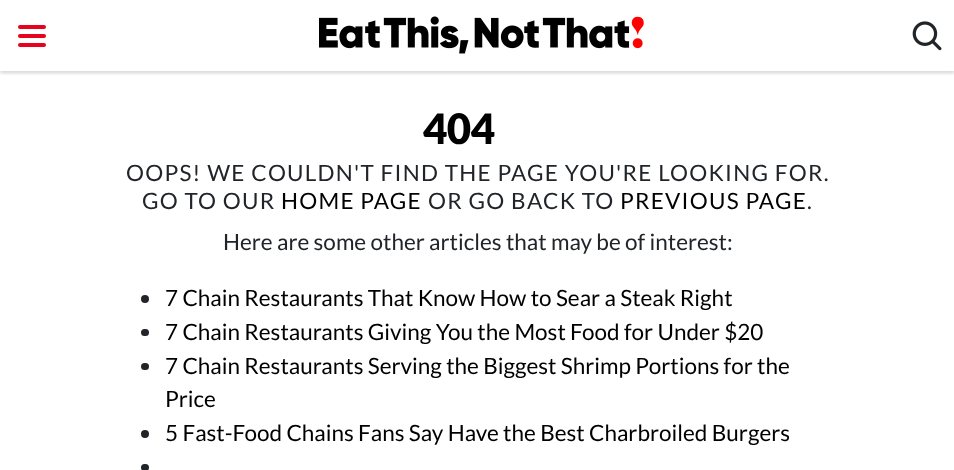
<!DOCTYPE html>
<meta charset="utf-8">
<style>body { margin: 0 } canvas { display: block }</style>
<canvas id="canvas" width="954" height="470"></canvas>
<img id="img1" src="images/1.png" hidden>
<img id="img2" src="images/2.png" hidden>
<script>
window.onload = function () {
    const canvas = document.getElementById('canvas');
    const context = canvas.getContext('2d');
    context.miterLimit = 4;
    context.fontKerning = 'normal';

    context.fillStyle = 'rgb(255, 255, 255)';
    context.fillRect(0, 0, 954, 470);
    context.save();
    context.beginPath();
    context.rect(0, 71, 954, 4);
    context.clip();
    context.fillStyle = 'rgba(0, 0, 0, 0.09)';
    context.filter = 'blur(2px)';
    context.beginPath();
    context.rect(0, 1, 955, 72);
    context.fill();
    context.filter = 'none';
    context.filter = 'blur(2px)';
    context.beginPath();
    context.rect(0, 1, 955, 72);
    context.fill();
    context.filter = 'none';
    context.restore();
    context.fillStyle = 'rgb(232, 2, 29)';
    context.beginPath();
    context.roundRect(18, 25, 28, 4, 2);
    context.fill();
    context.beginPath();
    context.roundRect(18, 34, 28, 4, 2);
    context.fill();
    context.beginPath();
    context.roundRect(18, 43, 28, 4, 2);
    context.fill();
    context.drawImage(document.getElementById('img1'), 319, 16, 325, 38);
    context.drawImage(document.getElementById('img2'), 912, 21, 30, 30);
    context.fillStyle = 'rgb(33, 37, 41)';
    context.beginPath();
    context.arc(145, 299, 4, 0, 2 * Math.PI);
    context.fill();
    context.beginPath();
    context.roundRect(141, 329, 8, 7, 3.5);
    context.fill();
    context.beginPath();
    context.roundRect(141, 363, 8, 7, 3.5);
    context.fill();
    context.beginPath();
    context.arc(145, 434, 4, 0, 2 * Math.PI);
    context.fill();
    context.beginPath();
    context.roundRect(141, 464, 8, 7, 3.5);
    context.fill();
    context.letterSpacing = '-0.5px';
    context.font = '900 42px Lato';
    context.fillStyle = 'rgb(0, 0, 0)';
    context.fillText('404', 423, 144);
    context.letterSpacing = '1.25px';
    context.font = '22.5px Lato';
    context.fillStyle = 'rgb(33, 37, 41)';
    context.fillText('OOPS! WE COULDN\'T FIND THE PAGE YOU\'RE LOOKING FOR.', 126, 181);
    context.fillText('GO TO OUR', 142, 209);
    context.fillStyle = 'rgb(0, 0, 0)';
    context.fillText('HOME PAGE', 281, 209);
    context.fillStyle = 'rgb(33, 37, 41)';
    context.fillText('OR GO BACK TO', 428, 209);
    context.fillStyle = 'rgb(0, 0, 0)';
    context.fillText('PREVIOUS PAGE', 620, 209);
    context.fillStyle = 'rgb(33, 37, 41)';
    context.fillText('.', 807, 209);
    context.letterSpacing = '0px';
    context.fillText('Here are some other articles that may be of interest:', 223, 250);
    context.fillStyle = 'rgb(0, 0, 0)';
    context.fillText('7 Chain Restaurants That Know How to Sear a Steak Right', 165, 306);
    context.fillText('7 Chain Restaurants Giving You the Most Food for Under $20', 165, 340);
    context.fillText('7 Chain Restaurants Serving the Biggest Shrimp Portions for the', 165, 374);
    context.fillText('Price', 165, 407);
    context.fillText('5 Fast-Food Chains Fans Say Have the Best Charbroiled Burgers', 165, 441);
};
</script>
